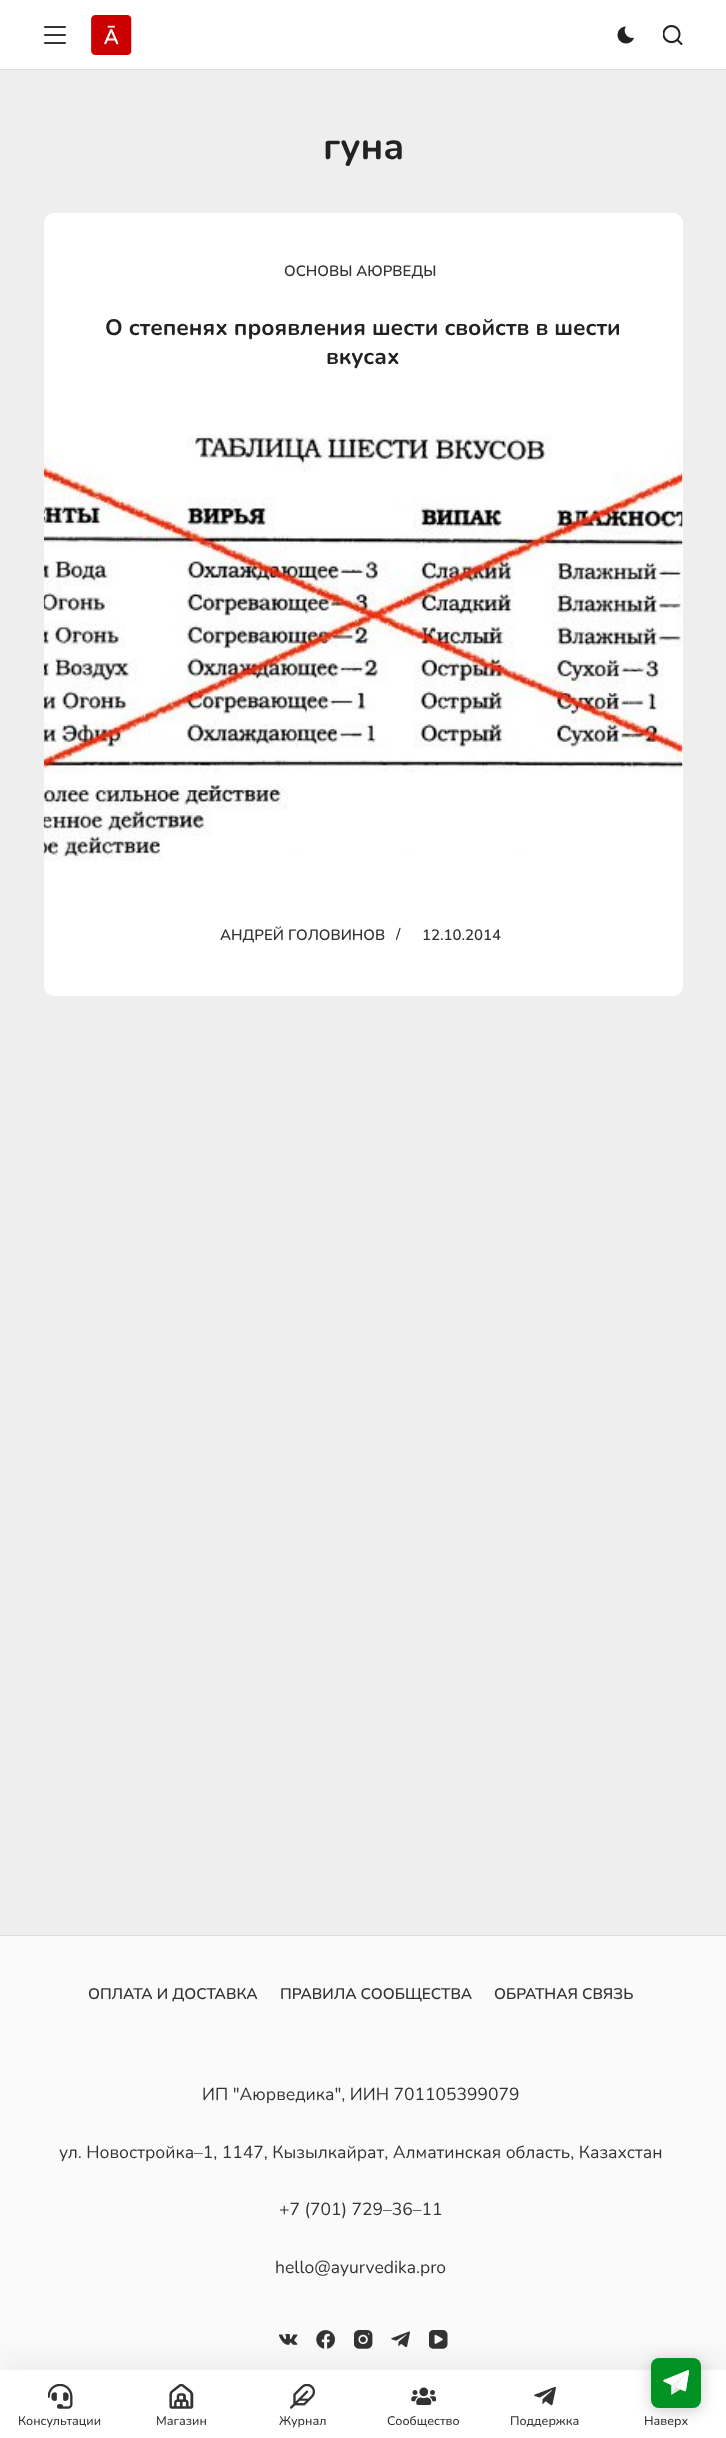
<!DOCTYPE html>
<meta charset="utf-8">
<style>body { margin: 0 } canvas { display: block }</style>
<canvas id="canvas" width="726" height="2438"></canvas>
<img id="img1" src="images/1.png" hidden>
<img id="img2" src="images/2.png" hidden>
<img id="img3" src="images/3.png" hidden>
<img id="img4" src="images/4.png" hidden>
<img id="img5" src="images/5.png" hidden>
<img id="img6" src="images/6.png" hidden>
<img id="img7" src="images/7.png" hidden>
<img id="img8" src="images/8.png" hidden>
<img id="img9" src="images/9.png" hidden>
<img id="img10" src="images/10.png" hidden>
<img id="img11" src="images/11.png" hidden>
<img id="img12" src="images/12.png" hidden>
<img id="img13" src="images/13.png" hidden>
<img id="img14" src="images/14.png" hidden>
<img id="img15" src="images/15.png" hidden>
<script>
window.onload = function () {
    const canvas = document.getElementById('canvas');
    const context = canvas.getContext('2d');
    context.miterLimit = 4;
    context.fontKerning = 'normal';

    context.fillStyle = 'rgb(238, 238, 238)';
    context.fillRect(0, 0, 726, 2438);
    context.fillStyle = 'rgb(255, 255, 255)';
    context.fillRect(0, 0, 726, 69);
    context.fillStyle = 'rgb(221, 221, 221)';
    context.fillRect(0, 69, 726, 1);
    context.fillStyle = 'rgb(51, 51, 51)';
    context.beginPath();
    context.roundRect(44, 26, 22, 2, 1);
    context.fill();
    context.beginPath();
    context.roundRect(44, 34, 22, 2, 1);
    context.fill();
    context.beginPath();
    context.roundRect(44, 42, 22, 2, 1);
    context.fill();
    context.drawImage(document.getElementById('img1'), 91, 15, 41, 40);
    context.drawImage(document.getElementById('img2'), 617, 26, 18, 18);
    context.drawImage(document.getElementById('img3'), 663, 25, 20, 20);
    context.fillStyle = 'rgb(255, 255, 255)';
    context.beginPath();
    context.roundRect(44, 213, 639, 783, 10);
    context.fill();
    context.drawImage(document.getElementById('img4'), 43, 435, 640, 426);
    context.fillStyle = 'rgb(250, 250, 250)';
    context.fillRect(0, 1936, 726, 434);
    context.fillStyle = 'rgb(221, 221, 221)';
    context.fillRect(0, 1935, 726, 1);
    context.drawImage(document.getElementById('img5'), 279, 2334, 19, 11);
    context.drawImage(document.getElementById('img6'), 316, 2330, 19, 19);
    context.drawImage(document.getElementById('img7'), 354, 2330, 19, 19);
    context.drawImage(document.getElementById('img8'), 391, 2331, 19, 17);
    context.drawImage(document.getElementById('img9'), 429, 2330, 19, 19);
    context.fillStyle = 'rgba(18, 18, 18, 0.05)';
    context.filter = 'blur(12.5px)';
    context.beginPath();
    context.rect(0, 2358, 726, 68);
    context.fill();
    context.filter = 'none';
    context.fillStyle = 'rgb(255, 255, 255)';
    context.fillRect(0, 2370, 726, 68);
    context.fillStyle = 'rgba(0, 0, 0, 0.2)';
    context.filter = 'blur(7.5px)';
    context.beginPath();
    context.roundRect(651, 2361, 50, 50, 8);
    context.fill();
    context.filter = 'none';
    context.fillStyle = 'rgb(0, 147, 36)';
    context.beginPath();
    context.roundRect(651, 2358, 50, 50, 8);
    context.fill();
    context.drawImage(document.getElementById('img10'), 663, 2370, 27, 25);
    context.drawImage(document.getElementById('img11'), 48, 2384, 25, 25);
    context.drawImage(document.getElementById('img12'), 169, 2384, 25, 25);
    context.drawImage(document.getElementById('img13'), 290, 2384, 25, 25);
    context.drawImage(document.getElementById('img14'), 411, 2387, 25, 18);
    context.drawImage(document.getElementById('img15'), 534, 2386, 22, 20);
    context.font = 'bold 37.5px Nunito';
    context.fillStyle = 'rgb(34, 34, 34)';
    context.fillText('гуна', 323, 159);
    context.font = '600 15px Nunito';
    context.fillStyle = 'rgb(51, 51, 51)';
    context.fillText('ОСНОВЫ АЮРВЕДЫ', 284, 276);
    context.font = 'bold 22.5px Nunito';
    context.fillStyle = 'rgb(34, 34, 34)';
    context.fillText('О степенях проявления шести свойств в шести', 105, 335);
    context.fillText('вкусах', 326, 364);
    context.font = '600 15px Nunito';
    context.fillStyle = 'rgb(51, 51, 51)';
    context.fillText('АНДРЕЙ ГОЛОВИНОВ', 220, 940);
    context.fillText('/', 396, 939);
    context.fillText('12.10.2014', 422, 940);
    context.font = '600 15.4px Nunito';
    context.fillText('ОПЛАТА И ДОСТАВКА', 88, 1999);
    context.fillText('ПРАВИЛА СООБЩЕСТВА', 280, 1999);
    context.fillText('ОБРАТНАЯ СВЯЗЬ', 494, 1999);
    context.font = '17.5px Nunito';
    context.fillText('ИП "Аюрведика", ИИН 701105399079', 202, 2100);
    context.fillText('ул. Новостройка–1, 1147, Кызылкайрат, Алматинская область, Казахстан', 59, 2158);
    context.fillText('+7 (701) 729–36–11', 279, 2215);
    context.fillText('hello@ayurvedika.pro', 275, 2273);
    context.font = '500 12.5px Nunito';
    context.fillText('Консультации', 18, 2425);
    context.fillText('Магазин', 156, 2425);
    context.fillText('Журнал', 279, 2425);
    context.fillText('Сообщество', 387, 2425);
    context.fillText('Поддержка', 510, 2425);
    context.fillText('Наверх', 644, 2425);
};
</script>
